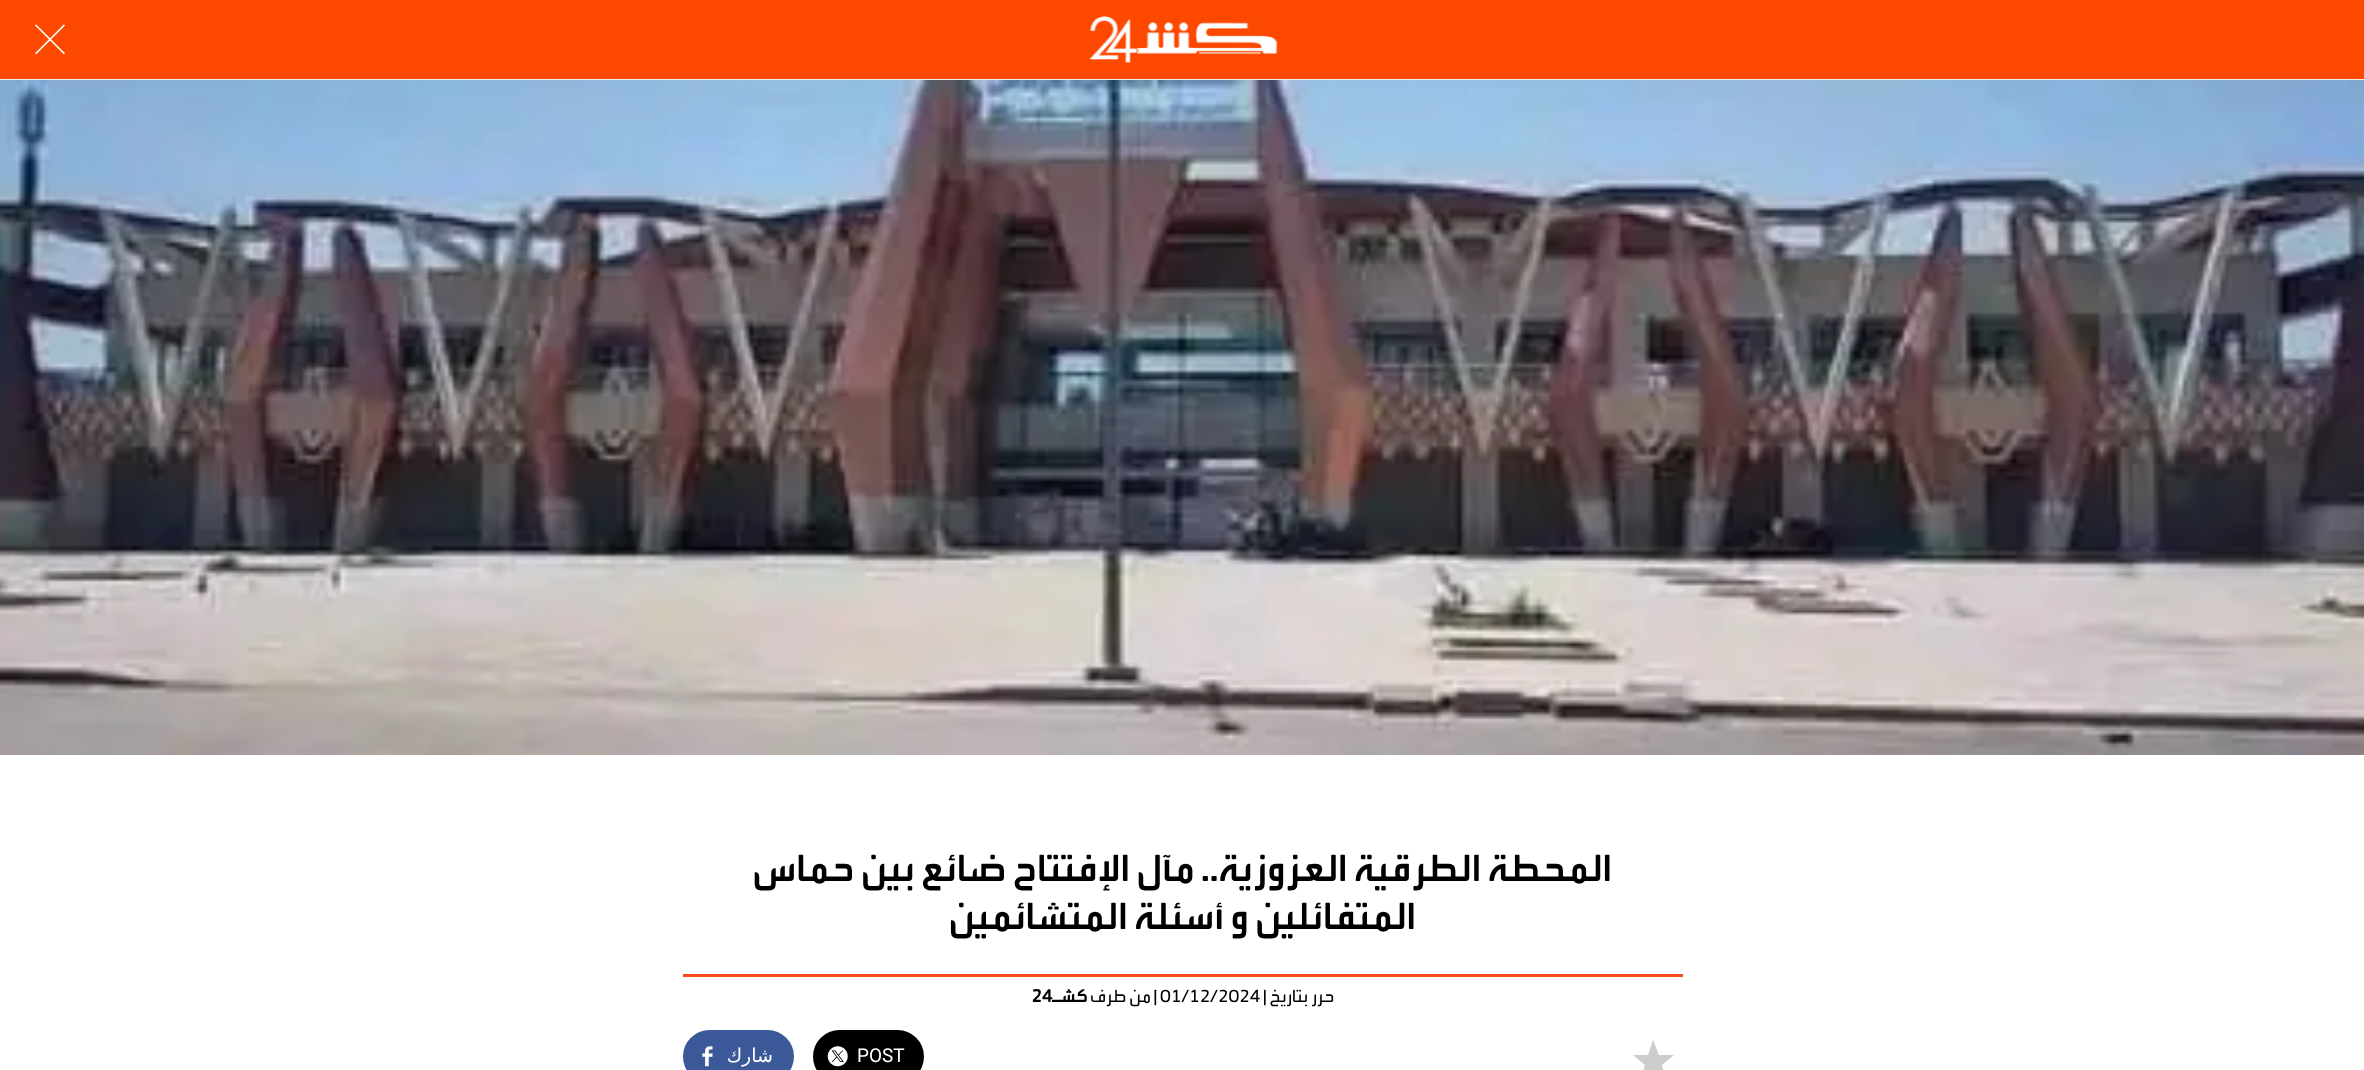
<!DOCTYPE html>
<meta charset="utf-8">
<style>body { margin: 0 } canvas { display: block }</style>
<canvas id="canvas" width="2364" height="1070"></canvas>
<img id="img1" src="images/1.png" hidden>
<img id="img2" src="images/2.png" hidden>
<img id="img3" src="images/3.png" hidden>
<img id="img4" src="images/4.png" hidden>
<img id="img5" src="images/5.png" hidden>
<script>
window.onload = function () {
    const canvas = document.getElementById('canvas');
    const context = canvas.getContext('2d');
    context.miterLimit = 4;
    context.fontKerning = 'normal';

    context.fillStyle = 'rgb(255, 255, 255)';
    context.fillRect(0, 0, 2364, 1070);
    context.fillStyle = 'rgb(253, 72, 0)';
    context.fillRect(0, 0, 2364, 79);
    context.fillStyle = 'rgb(237, 237, 237)';
    context.fillRect(0, 79, 2364, 1);
    context.drawImage(document.getElementById('img1'), 1089, 16, 189, 47);
    context.drawImage(document.getElementById('img2'), 35, 24, 30, 31);
    context.drawImage(document.getElementById('img3'), 0, 80, 2364, 675);
    context.fillStyle = 'rgb(250, 73, 28)';
    context.fillRect(683, 974, 1000, 3);
    context.fillStyle = 'rgb(204, 204, 204)';
    context.beginPath();
    context.moveTo(1674, 1055);
    context.lineTo(1659, 1055);
    context.lineTo(1653, 1040);
    context.lineTo(1648, 1055);
    context.lineTo(1633, 1055);
    context.lineTo(1645, 1065);
    context.lineTo(1641, 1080);
    context.lineTo(1653, 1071);
    context.lineTo(1666, 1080);
    context.lineTo(1662, 1065);
    context.closePath();
    context.fill();
    context.fillStyle = 'rgb(0, 0, 0)';
    context.beginPath();
    context.roundRect(813, 1030, 111, 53, 26.5);
    context.fill();
    context.drawImage(document.getElementById('img4'), 827, 1046, 21, 21);
    context.fillStyle = 'rgb(59, 89, 153)';
    context.beginPath();
    context.roundRect(683, 1030, 111, 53, 26.5);
    context.fill();
    context.drawImage(document.getElementById('img5'), 702, 1046, 11, 21);
    context.direction = 'rtl';
    context.font = 'bold 48.75px "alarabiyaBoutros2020"';
    context.fillStyle = 'rgb(0, 0, 0)';
    context.fillText('المحطة الطرقية العزوزية.. مآل الإفتتاح ضائع بين حماس', 1612, 881);
    context.fillText('المتفائلين و أسئلة المتشائمين', 1416, 929);
    context.font = '22.5px "alarabiyaBoutros2020"';
    context.fillText('حرر بتاريخ |', 1334, 1002);
    context.direction = 'ltr';
    context.fillText('01/12/2024', 1160, 1002);
    context.direction = 'rtl';
    context.fillText('| من طرف', 1157, 1002);
    context.direction = 'ltr';
    context.font = 'bold 22.5px "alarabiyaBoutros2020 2"';
    context.fillText('24', 1031, 1002);
    context.direction = 'rtl';
    context.fillText('كشـ', 1087, 1002);
    context.direction = 'ltr';
    context.font = '19px Roboto';
    context.fillStyle = 'rgb(255, 255, 255)';
    context.fillText('POST', 857, 1062);
    context.direction = 'rtl';
    context.font = '19px DejaVu Sans';
    context.fillText('شارك', 773, 1062);
};
</script>
